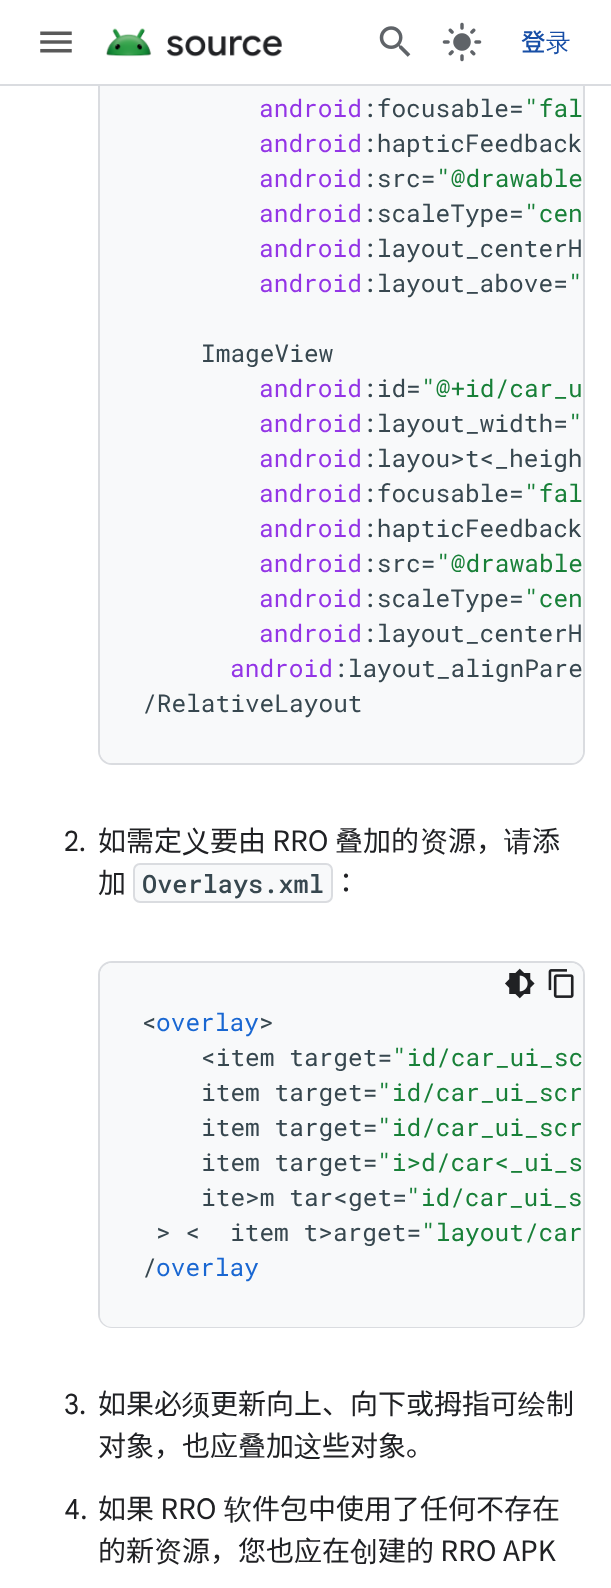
<!DOCTYPE html>
<meta charset="utf-8">
<style>body { margin: 0 } canvas { display: block }</style>
<canvas id="canvas" width="611" height="1588"></canvas>
<img id="img1" src="images/1.png" hidden>
<img id="img2" src="images/2.png" hidden>
<img id="img3" src="images/3.png" hidden>
<img id="img4" src="images/4.png" hidden>
<img id="img5" src="images/5.png" hidden>
<img id="img6" src="images/6.png" hidden>
<script>
window.onload = function () {
    const canvas = document.getElementById('canvas');
    const context = canvas.getContext('2d');
    context.miterLimit = 4;
    context.fontKerning = 'normal';

    context.fillStyle = 'rgb(255, 255, 255)';
    context.fillRect(0, 0, 611, 1588);
    context.beginPath();
    context.roundRect(99, -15, 485, 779, 13);
    context.strokeStyle = 'rgb(218, 220, 224)';
    context.lineWidth = 2;
    context.stroke();
    context.fillStyle = 'rgb(248, 249, 250)';
    context.beginPath();
    context.roundRect(100, -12, 483, 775, 12);
    context.fill();
    context.fillStyle = 'rgb(255, 255, 255)';
    context.fillRect(98, 0, 487, 84);
    context.fillStyle = 'rgb(218, 220, 224)';
    context.fillRect(0, 84, 611, 2);
    context.drawImage(document.getElementById('img1'), 40, 31, 32, 22);
    context.drawImage(document.getElementById('img2'), 106, 28, 176, 29);
    context.drawImage(document.getElementById('img3'), 379, 26, 32, 31);
    context.drawImage(document.getElementById('img4'), 442, 22, 40, 40);
    context.fillStyle = 'rgb(248, 249, 250)';
    context.beginPath();
    context.roundRect(134, 864, 198, 38, 6);
    context.fill();
    context.stroke();
    context.beginPath();
    context.roundRect(99, 962, 485, 365, 13);
    context.stroke();
    context.beginPath();
    context.roundRect(100, 963, 483, 364, 12);
    context.fill();
    context.drawImage(document.getElementById('img5'), 505, 968, 30, 31);
    context.drawImage(document.getElementById('img6'), 548, 969, 26, 29);
    context.font = '500 24.5px Noto Sans JP';
    context.fillStyle = 'rgb(23, 78, 166)';
    context.fillText('登', 521, 51);
    context.font = '500 24.5px WenQuanYi Zen Hei';
    context.fillText('录', 546, 51);
    context.font = '24.5px Roboto Mono';
    context.fillStyle = 'rgb(147, 52, 230)';
    context.fillText('android', 259, 117);
    context.fillStyle = 'rgb(55, 71, 79)';
    context.fillText(':focusable=', 362, 117);
    context.fillStyle = 'rgb(24, 128, 56)';
    context.fillText('"fal', 524, 117);
    context.fillStyle = 'rgb(147, 52, 230)';
    context.fillText('android', 259, 152);
    context.fillStyle = 'rgb(55, 71, 79)';
    context.fillText(':hapticFeedback', 362, 152);
    context.fillStyle = 'rgb(147, 52, 230)';
    context.fillText('android', 259, 187);
    context.fillStyle = 'rgb(55, 71, 79)';
    context.fillText(':src=', 362, 187);
    context.fillStyle = 'rgb(24, 128, 56)';
    context.fillText('"@drawable', 436, 187);
    context.fillStyle = 'rgb(147, 52, 230)';
    context.fillText('android', 259, 222);
    context.fillStyle = 'rgb(55, 71, 79)';
    context.fillText(':scaleType=', 362, 222);
    context.fillStyle = 'rgb(24, 128, 56)';
    context.fillText('"cen', 524, 222);
    context.fillStyle = 'rgb(147, 52, 230)';
    context.fillText('android', 259, 257);
    context.fillStyle = 'rgb(55, 71, 79)';
    context.fillText(':layout_centerH', 362, 257);
    context.fillStyle = 'rgb(147, 52, 230)';
    context.fillText('android', 259, 292);
    context.fillStyle = 'rgb(55, 71, 79)';
    context.fillText(':layout_above=', 362, 292);
    context.fillStyle = 'rgb(24, 128, 56)';
    context.fillText('"', 568, 292);
    context.fillStyle = 'rgb(55, 71, 79)';
    context.fillText('ImageView', 201, 362);
    context.fillStyle = 'rgb(147, 52, 230)';
    context.fillText('android', 259, 397);
    context.fillStyle = 'rgb(55, 71, 79)';
    context.fillText(':id=', 362, 397);
    context.fillStyle = 'rgb(24, 128, 56)';
    context.fillText('"@+id/car_u', 421, 397);
    context.fillStyle = 'rgb(147, 52, 230)';
    context.fillText('android', 259, 432);
    context.fillStyle = 'rgb(55, 71, 79)';
    context.fillText(':layout_width=', 362, 432);
    context.fillStyle = 'rgb(24, 128, 56)';
    context.fillText('"', 568, 432);
    context.fillStyle = 'rgb(147, 52, 230)';
    context.fillText('android', 259, 467);
    context.fillStyle = 'rgb(55, 71, 79)';
    context.fillText(':layou>t<_heigh', 362, 467);
    context.fillStyle = 'rgb(147, 52, 230)';
    context.fillText('android', 259, 502);
    context.fillStyle = 'rgb(55, 71, 79)';
    context.fillText(':focusable=', 362, 502);
    context.fillStyle = 'rgb(24, 128, 56)';
    context.fillText('"fal', 524, 502);
    context.fillStyle = 'rgb(147, 52, 230)';
    context.fillText('android', 259, 537);
    context.fillStyle = 'rgb(55, 71, 79)';
    context.fillText(':hapticFeedback', 362, 537);
    context.fillStyle = 'rgb(147, 52, 230)';
    context.fillText('android', 259, 572);
    context.fillStyle = 'rgb(55, 71, 79)';
    context.fillText(':src=', 362, 572);
    context.fillStyle = 'rgb(24, 128, 56)';
    context.fillText('"@drawable', 436, 572);
    context.fillStyle = 'rgb(147, 52, 230)';
    context.fillText('android', 259, 607);
    context.fillStyle = 'rgb(55, 71, 79)';
    context.fillText(':scaleType=', 362, 607);
    context.fillStyle = 'rgb(24, 128, 56)';
    context.fillText('"cen', 524, 607);
    context.fillStyle = 'rgb(147, 52, 230)';
    context.fillText('android', 259, 642);
    context.fillStyle = 'rgb(55, 71, 79)';
    context.fillText(':layout_centerH', 362, 642);
    context.fillStyle = 'rgb(147, 52, 230)';
    context.fillText('android', 230, 677);
    context.fillStyle = 'rgb(55, 71, 79)';
    context.fillText(':layout_alignPare', 333, 677);
    context.fillText('/RelativeLayout', 142, 712);
    context.font = '28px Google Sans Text';
    context.fillStyle = 'rgb(32, 33, 36)';
    context.fillText('2.', 64, 851);
    context.font = '28px Noto Sans JP';
    context.fillText('如需定', 98, 851);
    context.font = '500 28px WenQuanYi Zen Hei';
    context.fillText('义', 182, 851);
    context.font = '28px Noto Sans JP';
    context.fillText('要由 RRO 叠加的', 210, 851);
    context.font = '500 28px WenQuanYi Zen Hei';
    context.fillText('资', 420, 851);
    context.font = '28px Noto Sans JP';
    context.fillText('源，', 448, 851);
    context.font = '500 28px WenQuanYi Zen Hei';
    context.fillText('请', 504, 851);
    context.font = '28px Noto Sans JP';
    context.fillText('添', 532, 851);
    context.fillText('加', 98, 893);
    context.font = '500 25.25px Roboto Mono';
    context.fillStyle = 'rgb(55, 71, 79)';
    context.fillText('Overlays.xml', 142, 893);
    context.font = '28px Noto Sans JP';
    context.fillStyle = 'rgb(32, 33, 36)';
    context.fillText('：', 332, 893);
    context.font = '24.5px Roboto Mono';
    context.fillStyle = 'rgb(55, 71, 79)';
    context.fillText('<', 142, 1031);
    context.fillStyle = 'rgb(25, 103, 210)';
    context.fillText('overlay', 156, 1031);
    context.fillStyle = 'rgb(55, 71, 79)';
    context.fillText('>', 259, 1031);
    context.fillText('<item target=', 201, 1066);
    context.fillStyle = 'rgb(24, 128, 56)';
    context.fillText('"id/car_ui_sc', 392, 1066);
    context.fillStyle = 'rgb(55, 71, 79)';
    context.fillText('item target=', 201, 1101);
    context.fillStyle = 'rgb(24, 128, 56)';
    context.fillText('"id/car_ui_scr', 377, 1101);
    context.fillStyle = 'rgb(55, 71, 79)';
    context.fillText('item target=', 201, 1136);
    context.fillStyle = 'rgb(24, 128, 56)';
    context.fillText('"id/car_ui_scr', 377, 1136);
    context.fillStyle = 'rgb(55, 71, 79)';
    context.fillText('item target=', 201, 1171);
    context.fillStyle = 'rgb(24, 128, 56)';
    context.fillText('"i>d/car<_ui_s', 377, 1171);
    context.fillStyle = 'rgb(55, 71, 79)';
    context.fillText('ite>m tar<get=', 201, 1206);
    context.fillStyle = 'rgb(24, 128, 56)';
    context.fillText('"id/car_ui_s', 406, 1206);
    context.fillStyle = 'rgb(55, 71, 79)';
    context.fillText('> <', 156, 1241);
    context.fillText('item t>arget=', 230, 1241);
    context.fillStyle = 'rgb(24, 128, 56)';
    context.fillText('"layout/car', 421, 1241);
    context.fillStyle = 'rgb(55, 71, 79)';
    context.fillText('/', 142, 1276);
    context.fillStyle = 'rgb(25, 103, 210)';
    context.fillText('overlay', 156, 1276);
    context.font = '28px Google Sans Text';
    context.fillStyle = 'rgb(32, 33, 36)';
    context.fillText('3.', 64, 1414);
    context.font = '28px Noto Sans JP';
    context.fillText('如果必', 98, 1414);
    context.font = '500 28px WenQuanYi Zen Hei';
    context.fillText('须', 182, 1414);
    context.font = '28px Noto Sans JP';
    context.fillText('更新向上、向下或拇指可', 210, 1414);
    context.font = '500 28px WenQuanYi Zen Hei';
    context.fillText('绘', 518, 1414);
    context.font = '28px Noto Sans JP';
    context.fillText('制', 546, 1414);
    context.font = '28px Noto Sans KR';
    context.fillText('对', 98, 1456);
    context.font = '28px Noto Sans JP';
    context.fillText('象，也', 126, 1456);
    context.font = '500 28px WenQuanYi Zen Hei';
    context.fillText('应', 210, 1456);
    context.font = '28px Noto Sans JP';
    context.fillText('叠加', 238, 1456);
    context.font = '500 28px WenQuanYi Zen Hei';
    context.fillText('这', 294, 1456);
    context.font = '28px Noto Sans JP';
    context.fillText('些', 322, 1456);
    context.font = '28px Noto Sans KR';
    context.fillText('对', 350, 1456);
    context.font = '28px Noto Sans JP';
    context.fillText('象。', 378, 1456);
    context.font = '28px Google Sans Text';
    context.fillText('4.', 64, 1519);
    context.font = '28px Noto Sans JP';
    context.fillText('如果 RRO', 98, 1519);
    context.font = '500 28px WenQuanYi Zen Hei';
    context.fillText('软', 224, 1519);
    context.font = '28px Noto Sans JP';
    context.fillText('件包中使用了任何不存在', 252, 1519);
    context.fillText('的新', 98, 1561);
    context.font = '500 28px WenQuanYi Zen Hei';
    context.fillText('资', 154, 1561);
    context.font = '28px Noto Sans JP';
    context.fillText('源，您也', 182, 1561);
    context.font = '500 28px WenQuanYi Zen Hei';
    context.fillText('应', 294, 1561);
    context.font = '28px Noto Sans JP';
    context.fillText('在', 322, 1561);
    context.font = '500 28px WenQuanYi Zen Hei';
    context.fillText('创', 350, 1561);
    context.font = '28px Noto Sans JP';
    context.fillText('建的 RRO APK', 378, 1561);
};
</script>
